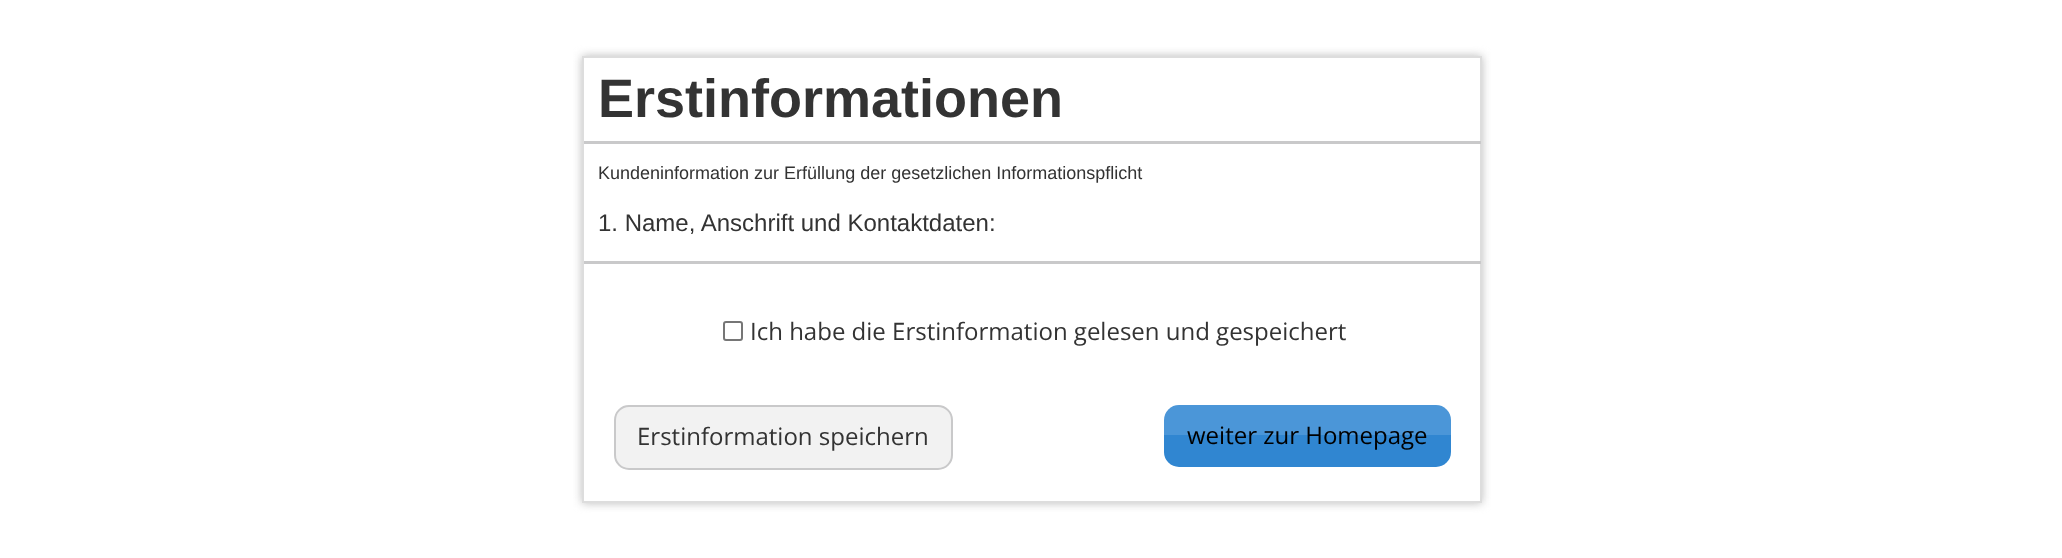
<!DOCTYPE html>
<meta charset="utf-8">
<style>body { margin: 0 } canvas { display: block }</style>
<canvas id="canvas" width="2062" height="558"></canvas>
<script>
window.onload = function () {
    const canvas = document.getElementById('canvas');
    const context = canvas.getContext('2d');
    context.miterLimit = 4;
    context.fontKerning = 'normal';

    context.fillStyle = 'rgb(255, 255, 255)';
    context.fillRect(0, 0, 2062, 558);
    context.fillStyle = 'rgb(187, 187, 187)';
    context.filter = 'blur(5px)';
    context.beginPath();
    context.rect(582, 56, 900, 447);
    context.fill();
    context.filter = 'none';
    context.fillStyle = 'rgb(255, 255, 255)';
    context.beginPath();
    context.rect(583, 57, 898, 445);
    context.fill();
    context.strokeStyle = 'rgb(221, 221, 221)';
    context.lineWidth = 2;
    context.stroke();
    context.fillStyle = 'rgb(201, 201, 202)';
    context.fillRect(584, 141, 897, 3);
    context.fillRect(584, 261, 897, 3);
    context.beginPath();
    context.roundRect(724, 322, 18, 18, 2);
    context.strokeStyle = 'rgb(118, 118, 118)';
    context.stroke();
    context.fillStyle = 'rgb(242, 242, 242)';
    context.beginPath();
    context.roundRect(615, 406, 337, 63, 14);
    context.fill();
    context.strokeStyle = 'rgb(201, 201, 202)';
    context.stroke();
    context.fillStyle = 'rgb(75, 150, 216)';
    context.beginPath();
    context.roundRect(1164, 405, 287, 30, [15, 15, 0, 0]);
    context.fill();
    context.fillStyle = 'rgb(48, 134, 209)';
    context.beginPath();
    context.roundRect(1164, 435, 287, 32, [0, 0, 15, 15]);
    context.fill();
    context.font = 'bold 54px Liberation Sans';
    context.fillStyle = 'rgb(51, 51, 51)';
    context.fillText('Erstinformationen', 598, 117);
    context.font = '18px Liberation Sans';
    context.fillText('Kundeninformation zur Erfüllung der gesetzlichen Informationspflicht', 598, 179);
    context.font = '24px Liberation Sans';
    context.fillText('1. Name, Anschrift und Kontaktdaten:', 598, 231);
    context.font = '24px Open Sans';
    context.fillText('Ich habe die Erstinformation gelesen und gespeichert', 750, 340);
    context.fillText('Erstinformation speichern', 637, 445);
    context.fillStyle = 'rgb(0, 0, 0)';
    context.fillText('weiter zur Homepage', 1187, 444);
};
</script>
